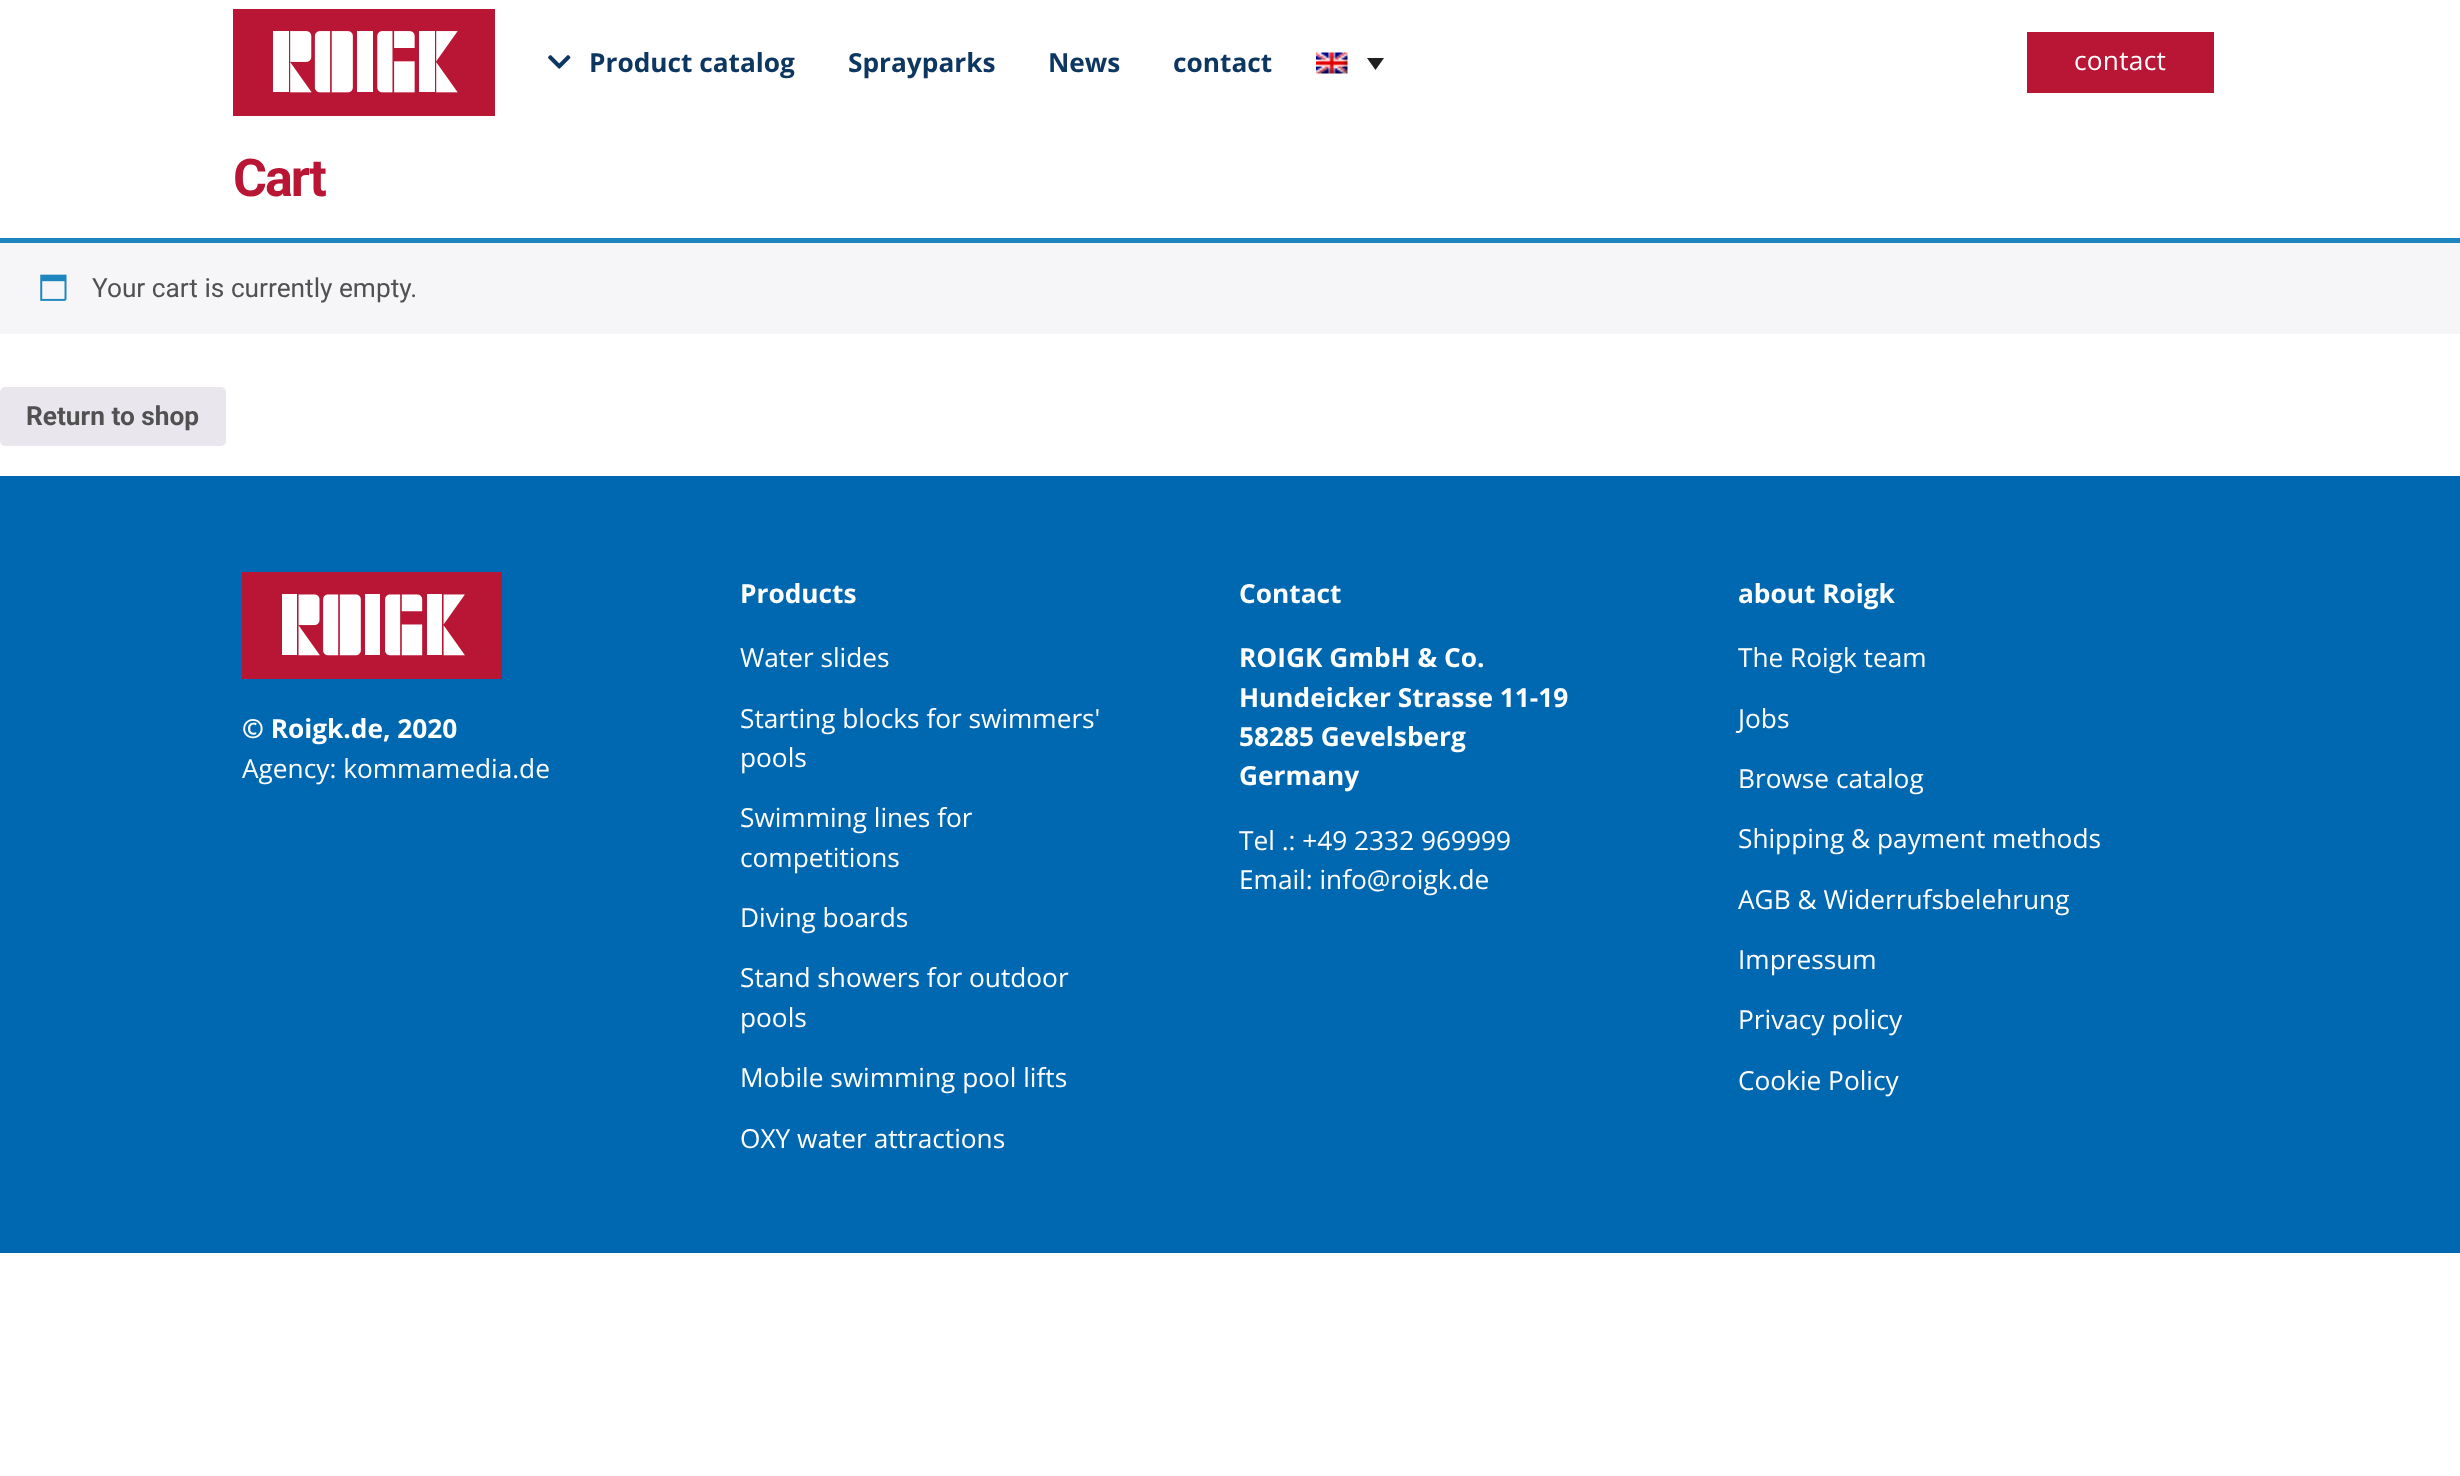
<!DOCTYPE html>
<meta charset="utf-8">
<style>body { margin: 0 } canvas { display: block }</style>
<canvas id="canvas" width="2460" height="1476"></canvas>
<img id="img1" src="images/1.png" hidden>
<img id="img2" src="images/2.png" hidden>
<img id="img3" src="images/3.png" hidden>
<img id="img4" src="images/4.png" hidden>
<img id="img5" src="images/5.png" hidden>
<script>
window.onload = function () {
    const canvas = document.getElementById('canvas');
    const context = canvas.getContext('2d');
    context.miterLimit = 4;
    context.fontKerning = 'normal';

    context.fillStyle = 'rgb(255, 255, 255)';
    context.fillRect(0, 0, 2460, 1476);
    context.fillStyle = 'rgb(185, 21, 53)';
    context.fillRect(233, 9, 262, 107);
    context.drawImage(document.getElementById('img1'), 273, 31, 185, 62);
    context.drawImage(document.getElementById('img2'), 548, 55, 23, 14);
    context.drawImage(document.getElementById('img3'), 1316, 52, 32, 22);
    context.fillStyle = 'rgb(32, 32, 32)';
    context.beginPath();
    context.moveTo(1367, 58);
    context.lineTo(1384, 58);
    context.lineTo(1375.5, 70);
    context.closePath();
    context.fill();
    context.fillStyle = 'rgb(185, 21, 53)';
    context.fillRect(2027, 32, 187, 61);
    context.fillStyle = 'rgb(246, 245, 248)';
    context.fillRect(0, 243, 2460, 91);
    context.fillStyle = 'rgb(30, 133, 190)';
    context.fillRect(0, 238, 2460, 5);
    context.drawImage(document.getElementById('img4'), 40, 274, 27, 27);
    context.fillStyle = 'rgb(233, 230, 237)';
    context.beginPath();
    context.roundRect(0, 387, 226, 59, 5);
    context.fill();
    context.fillStyle = 'rgb(0, 103, 177)';
    context.fillRect(0, 476, 2460, 777);
    context.fillStyle = 'rgb(185, 21, 53)';
    context.fillRect(242, 572, 260, 107);
    context.drawImage(document.getElementById('img5'), 282, 594, 183, 62);
    context.font = 'bold 26.25px Open Sans';
    context.fillStyle = 'rgb(13, 54, 96)';
    context.fillText('Product catalog', 589, 72);
    context.fillText('Sprayparks', 848, 72);
    context.fillText('News', 1048, 72);
    context.fillText('contact', 1173, 72);
    context.letterSpacing = '0.25px';
    context.font = '26.25px Open Sans';
    context.fillStyle = 'rgb(255, 255, 255)';
    context.fillText('contact', 2074, 70);
    context.letterSpacing = '-2px';
    context.font = 'bold 52px Roboto';
    context.fillStyle = 'rgb(185, 21, 53)';
    context.fillText('Cart', 233, 196);
    context.letterSpacing = '0px';
    context.font = '26.25px Roboto';
    context.fillStyle = 'rgb(81, 81, 81)';
    context.fillText('Your cart is currently empty.', 92, 297);
    context.font = 'bold 26.25px Roboto';
    context.fillText('Return to shop', 26, 425);
    context.font = 'bold 26.25px Open Sans';
    context.fillStyle = 'rgb(255, 255, 255)';
    context.fillText('© Roigk.de, 2020', 242, 738);
    context.font = '26.25px Open Sans';
    context.fillText('Agency: kommamedia.de', 242, 778);
    context.font = 'bold 26.25px Open Sans';
    context.fillText('Products', 740, 603);
    context.font = '26.25px Open Sans';
    context.fillText('Water slides', 740, 667);
    context.fillText('Starting blocks for swimmers\'', 740, 728);
    context.fillText('pools', 740, 767);
    context.fillText('Swimming lines for', 740, 827);
    context.fillText('competitions', 740, 867);
    context.fillText('Diving boards', 740, 927);
    context.fillText('Stand showers for outdoor', 740, 987);
    context.fillText('pools', 740, 1027);
    context.fillText('Mobile swimming pool lifts', 740, 1087);
    context.fillText('OXY water attractions', 740, 1148);
    context.font = 'bold 26.25px Open Sans';
    context.fillText('Contact', 1239, 603);
    context.fillText('ROIGK GmbH & Co.', 1239, 667);
    context.fillText('Hundeicker Strasse 11-19', 1239, 707);
    context.fillText('58285 Gevelsberg', 1239, 746);
    context.fillText('Germany', 1239, 785);
    context.font = '26.25px Open Sans';
    context.fillText('Tel .: +49 2332 969999', 1239, 850);
    context.fillText('Email: info@roigk.de', 1239, 889);
    context.font = 'bold 26.25px Open Sans';
    context.fillText('about Roigk', 1738, 603);
    context.font = '26.25px Open Sans';
    context.fillText('The Roigk team', 1738, 667);
    context.fillText('Jobs', 1738, 728);
    context.fillText('Browse catalog', 1738, 788);
    context.fillText('Shipping & payment methods', 1738, 848);
    context.fillText('AGB & Widerrufsbelehrung', 1738, 909);
    context.fillText('Impressum', 1738, 969);
    context.fillText('Privacy policy', 1738, 1029);
    context.fillText('Cookie Policy', 1738, 1090);
};
</script>
